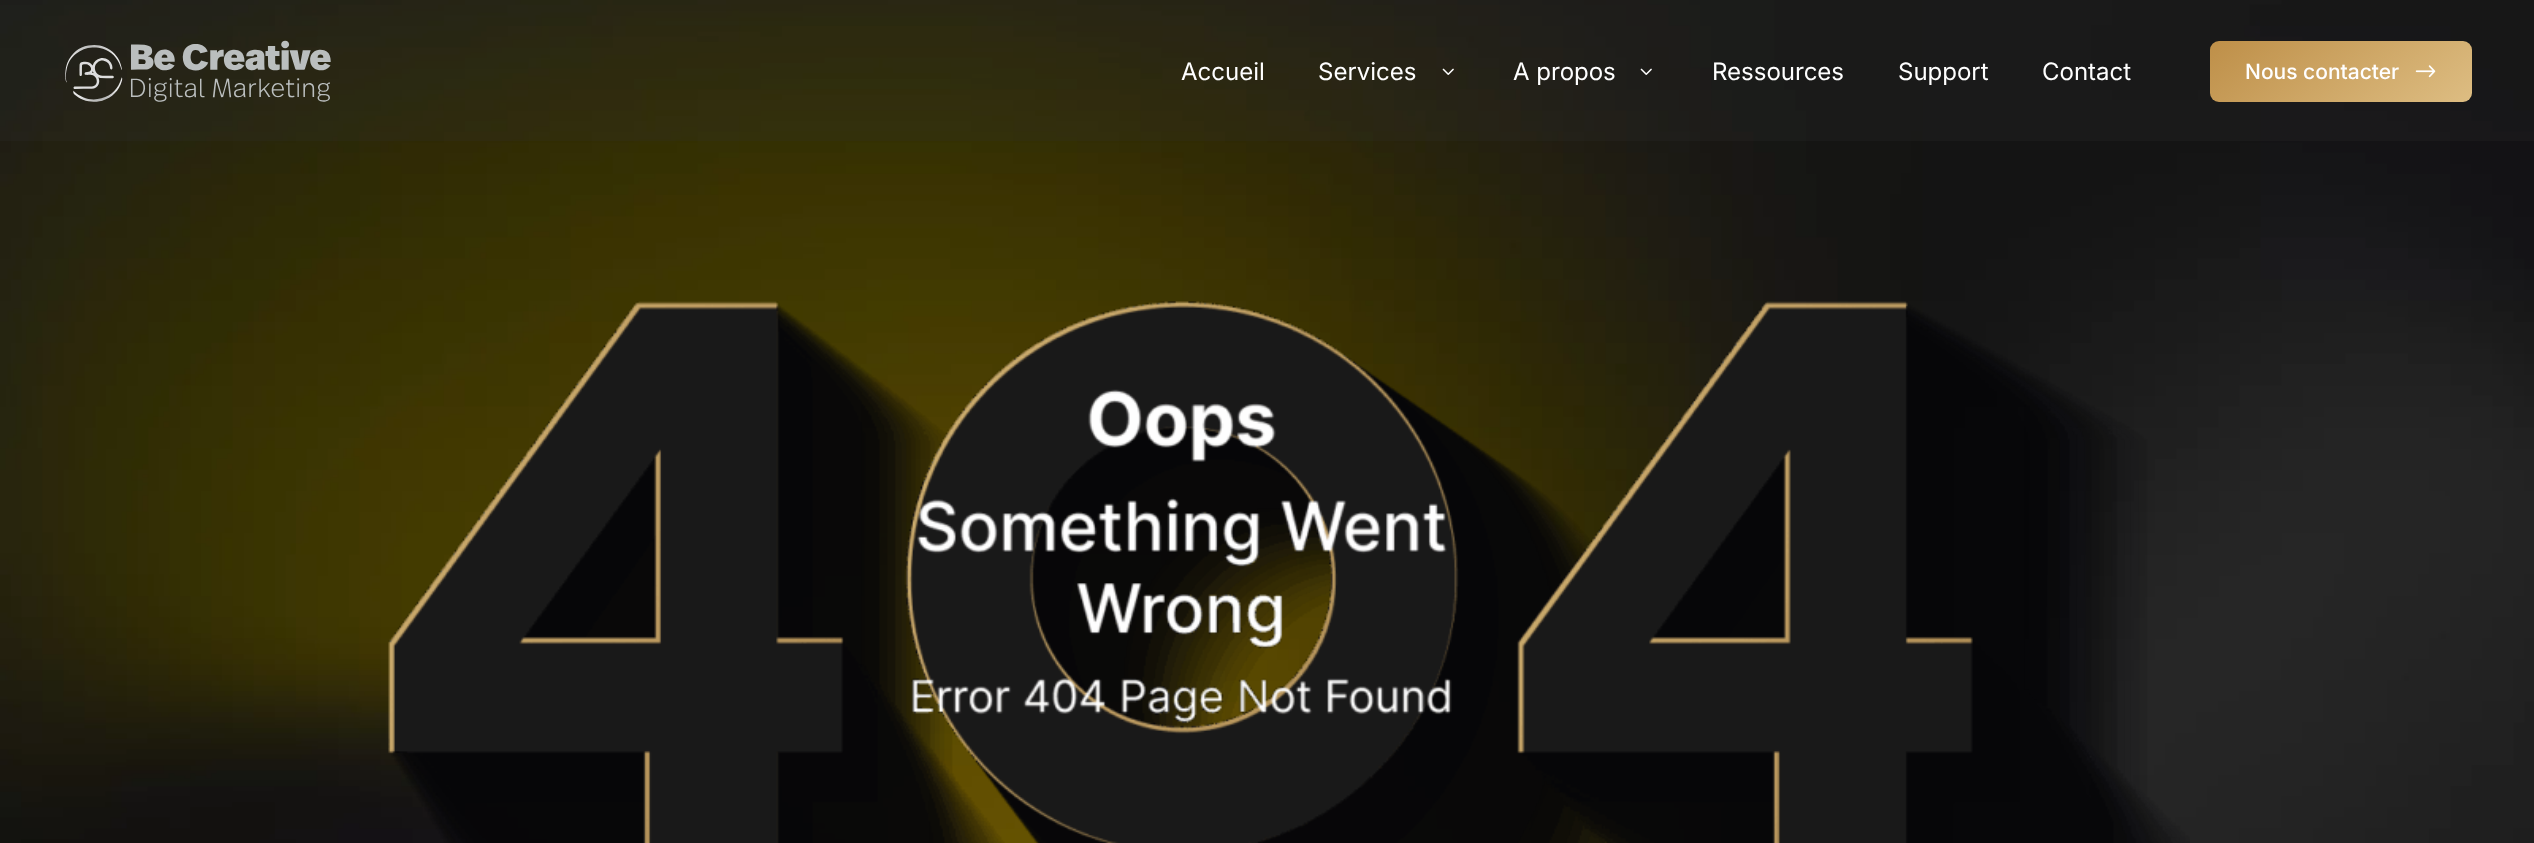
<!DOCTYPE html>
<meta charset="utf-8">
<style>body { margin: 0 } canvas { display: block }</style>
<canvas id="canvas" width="2534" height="843"></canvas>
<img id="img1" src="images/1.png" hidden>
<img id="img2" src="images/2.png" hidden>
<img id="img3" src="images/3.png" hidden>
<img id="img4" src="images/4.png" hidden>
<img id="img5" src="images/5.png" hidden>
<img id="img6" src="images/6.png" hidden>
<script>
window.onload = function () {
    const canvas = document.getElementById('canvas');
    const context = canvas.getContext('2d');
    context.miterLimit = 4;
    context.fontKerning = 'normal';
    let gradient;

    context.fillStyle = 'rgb(255, 255, 255)';
    context.fillRect(0, 0, 2534, 843);
    context.drawImage(document.getElementById('img1'), 0, 0, 2534, 843);
    context.drawImage(document.getElementById('img2'), 388, 301, 1802, 542);
    context.fillStyle = 'rgba(49, 49, 49, 0.2)';
    context.fillRect(0, 0, 2534, 141);
    context.drawImage(document.getElementById('img3'), 65, 40, 266, 62);
    context.drawImage(document.getElementById('img4'), 1442, 68, 12, 7);
    context.drawImage(document.getElementById('img5'), 1640, 68, 12, 7);
    gradient = context.createLinearGradient(2278, -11, 2430, 190);
    gradient.addColorStop(0, 'rgb(190, 143, 72)');
    gradient.addColorStop(1, 'rgb(228, 199, 143)');
    context.fillStyle = gradient;
    context.beginPath();
    context.roundRect(2210, 41, 262, 61, 9);
    context.fill();
    context.drawImage(document.getElementById('img6'), 2415, 65, 21, 13);
    context.font = '24px Inter';
    context.fillStyle = 'rgb(255, 255, 255)';
    context.fillText('Accueil', 1181, 80);
    context.fillText('Services', 1318, 80);
    context.fillText('A propos', 1513, 80);
    context.fillText('Ressources', 1712, 80);
    context.fillText('Support', 1898, 80);
    context.fillText('Contact', 2042, 80);
    context.font = '500 21px Inter';
    context.fillText('Nous contacter', 2245, 79);
};
</script>
